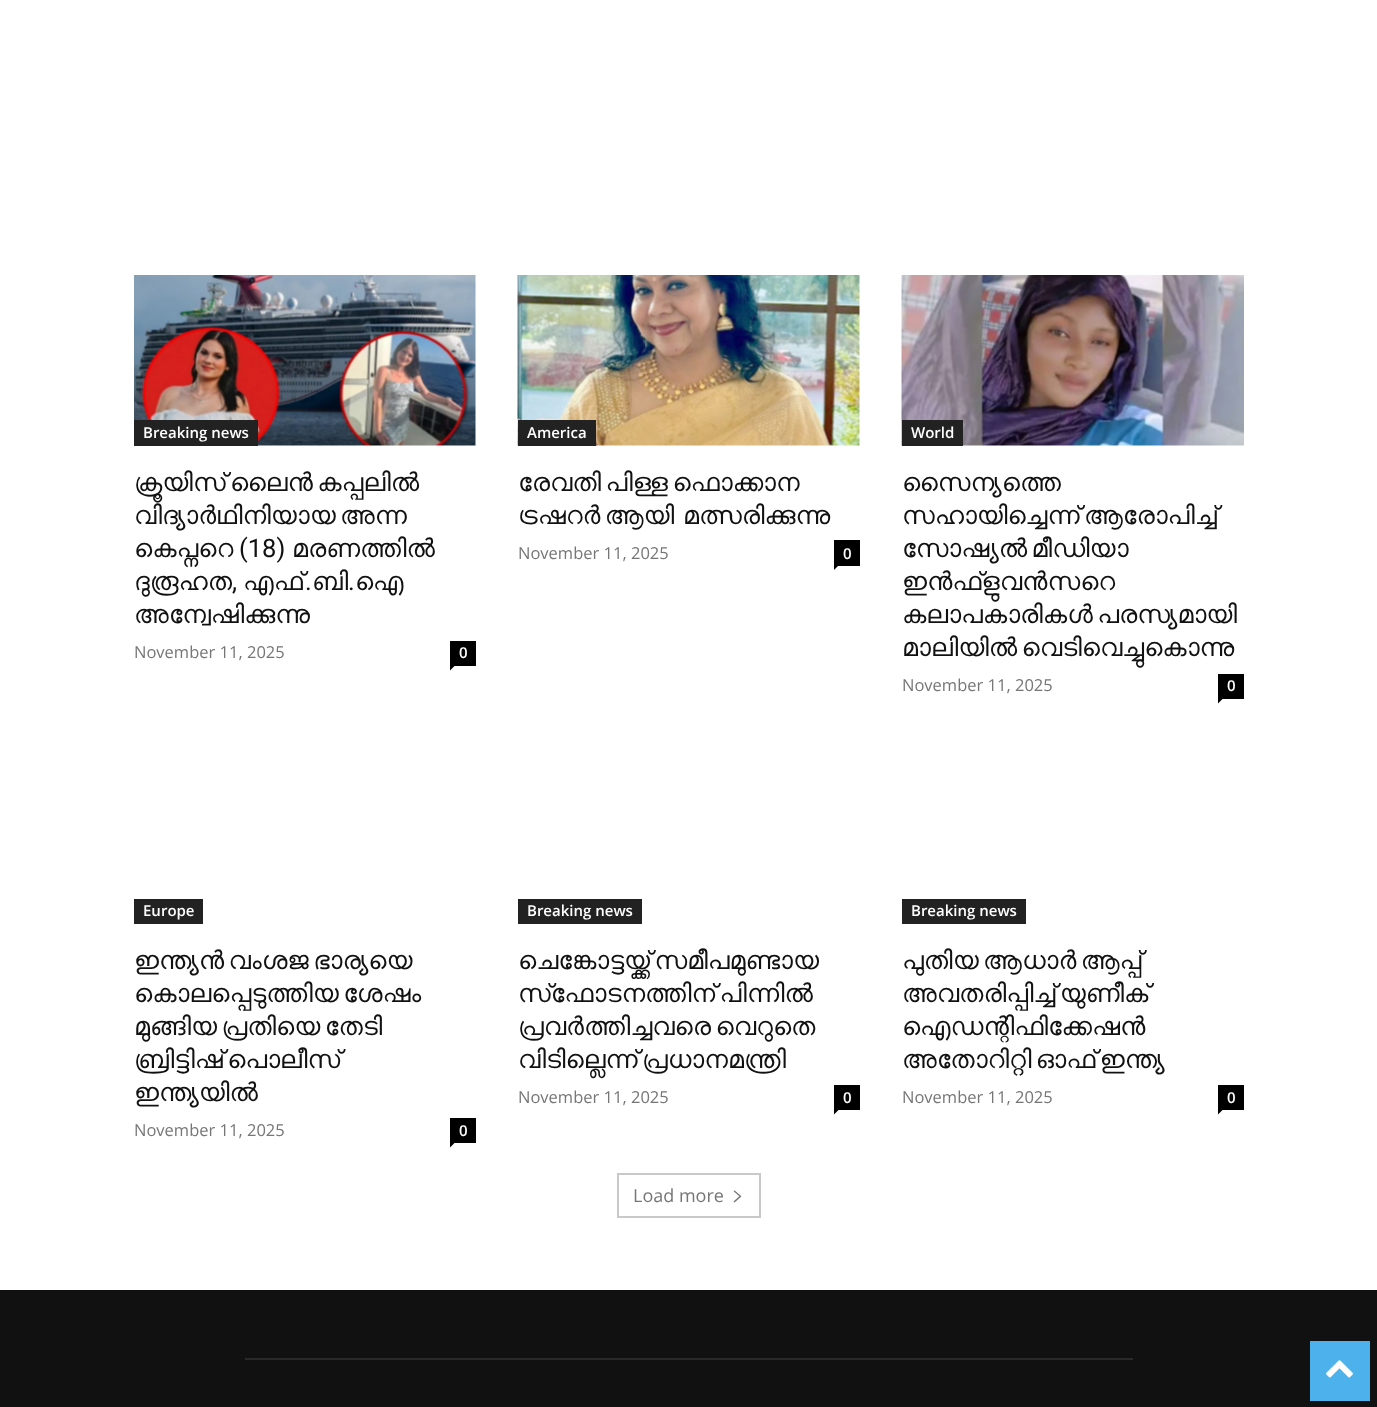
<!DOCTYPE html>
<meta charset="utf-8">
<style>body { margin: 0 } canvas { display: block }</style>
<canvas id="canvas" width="1377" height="1407"></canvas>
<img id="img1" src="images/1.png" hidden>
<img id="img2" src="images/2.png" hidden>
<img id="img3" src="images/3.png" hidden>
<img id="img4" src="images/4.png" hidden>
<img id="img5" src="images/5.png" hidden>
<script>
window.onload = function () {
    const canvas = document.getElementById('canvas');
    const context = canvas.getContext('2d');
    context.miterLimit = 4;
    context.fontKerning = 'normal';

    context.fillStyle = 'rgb(255, 255, 255)';
    context.fillRect(0, 0, 1377, 1407);
    context.drawImage(document.getElementById('img1'), 134, 275, 342, 171);
    context.fillStyle = 'rgb(34, 34, 34)';
    context.fillRect(134, 420, 124, 26);
    context.fillStyle = 'rgb(0, 0, 0)';
    context.fillRect(450, 641, 26, 25);
    context.beginPath();
    context.moveTo(450, 666);
    context.lineTo(454.5, 666);
    context.lineTo(450, 670.5);
    context.closePath();
    context.fill();
    context.drawImage(document.getElementById('img2'), 517, 275, 343, 171);
    context.fillStyle = 'rgb(34, 34, 34)';
    context.fillRect(518, 420, 78, 26);
    context.fillStyle = 'rgb(0, 0, 0)';
    context.fillRect(834, 540, 26, 26);
    context.beginPath();
    context.moveTo(834, 565.5);
    context.lineTo(838.5, 565.5);
    context.lineTo(834, 570);
    context.closePath();
    context.fill();
    context.drawImage(document.getElementById('img3'), 901, 275, 343, 171);
    context.fillStyle = 'rgb(34, 34, 34)';
    context.fillRect(902, 420, 61, 26);
    context.fillStyle = 'rgb(0, 0, 0)';
    context.fillRect(1218, 674, 26, 25);
    context.beginPath();
    context.moveTo(1218, 699);
    context.lineTo(1222.5, 699);
    context.lineTo(1218, 703.5);
    context.closePath();
    context.fill();
    context.fillStyle = 'rgb(34, 34, 34)';
    context.fillRect(134, 899, 69, 25);
    context.fillStyle = 'rgb(0, 0, 0)';
    context.fillRect(450, 1118, 26, 25);
    context.beginPath();
    context.moveTo(450, 1143);
    context.lineTo(454.5, 1143);
    context.lineTo(450, 1147.5);
    context.closePath();
    context.fill();
    context.fillStyle = 'rgb(34, 34, 34)';
    context.fillRect(518, 899, 124, 25);
    context.fillStyle = 'rgb(0, 0, 0)';
    context.fillRect(834, 1085, 26, 25);
    context.beginPath();
    context.moveTo(834, 1110);
    context.lineTo(838.5, 1110);
    context.lineTo(834, 1114.5);
    context.closePath();
    context.fill();
    context.fillStyle = 'rgb(34, 34, 34)';
    context.fillRect(902, 899, 124, 25);
    context.fillStyle = 'rgb(0, 0, 0)';
    context.fillRect(1218, 1085, 26, 25);
    context.beginPath();
    context.moveTo(1218, 1110);
    context.lineTo(1222.5, 1110);
    context.lineTo(1218, 1114.5);
    context.closePath();
    context.fill();
    context.strokeStyle = 'rgb(201, 201, 201)';
    context.lineWidth = 2;
    context.strokeRect(618, 1174, 142, 43);
    context.drawImage(document.getElementById('img4'), 733, 1190, 9, 13);
    context.fillStyle = 'rgb(17, 17, 17)';
    context.fillRect(0, 1290, 1377, 117);
    context.fillStyle = 'rgb(41, 41, 41)';
    context.fillRect(245, 1358, 888, 2);
    context.fillStyle = 'rgb(77, 178, 236)';
    context.fillRect(1310, 1341, 60, 60);
    context.drawImage(document.getElementById('img5'), 1326, 1360, 27, 18);
    context.font = '600 15px Open Sans';
    context.fillStyle = 'rgb(255, 255, 255)';
    context.fillText('Breaking news', 143, 438);
    context.wordSpacing = '-2px';
    context.font = '25.5px FreeSans';
    context.fillStyle = 'rgb(17, 17, 17)';
    context.fillText('ക്രൂയിസ് ലൈൻ കപ്പലിൽ', 134, 491);
    context.fillText('വിദ്യാർഥിനിയായ അന്ന', 134, 524);
    context.wordSpacing = '0px';
    context.fillText('കെപ്നറെ', 134, 557);
    context.font = '25.5px Roboto';
    context.fillText('(18)', 239, 557);
    context.font = '25.5px FreeSans';
    context.fillText('മരണത്തില്‍', 292, 557);
    context.fillText('ദുരൂഹത', 134, 590);
    context.font = '25.5px Roboto';
    context.fillText(',', 232, 590);
    context.font = '25.5px FreeSans';
    context.fillText('എഫ്', 243, 590);
    context.font = '25.5px Roboto';
    context.fillText('.', 305, 590);
    context.font = '25.5px FreeSans';
    context.fillText('ബി', 312, 590);
    context.font = '25.5px Roboto';
    context.fillText('.', 348, 590);
    context.font = '25.5px FreeSans';
    context.fillText('ഐ', 355, 590);
    context.fillText('അന്വേഷിക്കുന്നു', 134, 623);
    context.font = '16.5px Open Sans';
    context.fillStyle = 'rgb(118, 118, 118)';
    context.fillText('November 11, 2025', 134, 658);
    context.font = '600 15px Open Sans';
    context.fillStyle = 'rgb(255, 255, 255)';
    context.fillText('0', 459, 658);
    context.fillText('America', 527, 438);
    context.wordSpacing = '-2px';
    context.font = '25.5px FreeSans';
    context.fillStyle = 'rgb(17, 17, 17)';
    context.fillText('രേവതി പിള്ള ഫൊക്കാന', 518, 491);
    context.fillText('ട്രഷറര്‍ ആയി', 518, 524);
    context.wordSpacing = '0px';
    context.fillText('മത്സരിക്കുന്നു', 683, 524);
    context.font = '16.5px Open Sans';
    context.fillStyle = 'rgb(118, 118, 118)';
    context.fillText('November 11, 2025', 518, 559);
    context.font = '600 15px Open Sans';
    context.fillStyle = 'rgb(255, 255, 255)';
    context.fillText('0', 843, 559);
    context.fillText('World', 911, 438);
    context.font = '25.5px FreeSans';
    context.fillStyle = 'rgb(17, 17, 17)';
    context.fillText('സൈന്യത്തെ', 902, 491);
    context.wordSpacing = '-2px';
    context.fillText('സഹായിച്ചെന്ന് ആരോപിച്ച്', 902, 524);
    context.fillText('സോഷ്യല്‍ മീഡിയാ', 902, 557);
    context.wordSpacing = '0px';
    context.fillText('ഇന്‍ഫ്‌ളുവന്‍സറെ', 902, 590);
    context.wordSpacing = '-2px';
    context.fillText('കലാപകാരികള്‍ പരസ്യമായി', 902, 623);
    context.fillText('മാലിയില്‍ വെടിവെച്ചുകൊന്നു', 902, 656);
    context.wordSpacing = '0px';
    context.font = '16.5px Open Sans';
    context.fillStyle = 'rgb(118, 118, 118)';
    context.fillText('November 11, 2025', 902, 691);
    context.font = '600 15px Open Sans';
    context.fillStyle = 'rgb(255, 255, 255)';
    context.fillText('0', 1227, 691);
    context.fillText('Europe', 143, 916);
    context.wordSpacing = '-2px';
    context.font = '25.5px FreeSans';
    context.fillStyle = 'rgb(17, 17, 17)';
    context.fillText('ഇന്ത്യൻ വംശജ ഭാര്യയെ', 134, 969);
    context.fillText('കൊലപ്പെടുത്തിയ ശേഷം', 134, 1002);
    context.fillText('മുങ്ങിയ പ്രതിയെ തേടി', 134, 1035);
    context.fillText('ബ്രിട്ടിഷ് പൊലീസ്', 134, 1068);
    context.wordSpacing = '0px';
    context.fillText('ഇന്ത്യയിൽ', 134, 1101);
    context.font = '16.5px Open Sans';
    context.fillStyle = 'rgb(118, 118, 118)';
    context.fillText('November 11, 2025', 134, 1136);
    context.font = '600 15px Open Sans';
    context.fillStyle = 'rgb(255, 255, 255)';
    context.fillText('0', 459, 1136);
    context.fillText('Breaking news', 527, 916);
    context.wordSpacing = '-2px';
    context.font = '25.5px FreeSans';
    context.fillStyle = 'rgb(17, 17, 17)';
    context.fillText('ചെങ്കോട്ടയ്ക്ക് സമീപമുണ്ടായ', 518, 969);
    context.fillText('സ്‌ഫോടനത്തിന് പിന്നില്‍', 518, 1002);
    context.fillText('പ്രവര്‍ത്തിച്ചവരെ വെറുതെ', 518, 1035);
    context.fillText('വിടില്ലെന്ന് പ്രധാനമന്ത്രി', 518, 1068);
    context.wordSpacing = '0px';
    context.font = '16.5px Open Sans';
    context.fillStyle = 'rgb(118, 118, 118)';
    context.fillText('November 11, 2025', 518, 1103);
    context.font = '600 15px Open Sans';
    context.fillStyle = 'rgb(255, 255, 255)';
    context.fillText('0', 843, 1103);
    context.fillText('Breaking news', 911, 916);
    context.wordSpacing = '-2px';
    context.font = '25.5px FreeSans';
    context.fillStyle = 'rgb(17, 17, 17)';
    context.fillText('പുതിയ ആധാർ ആപ്പ്', 902, 969);
    context.fillText('അവതരിപ്പിച്ച് യുണീക്', 902, 1002);
    context.wordSpacing = '0px';
    context.fillText('ഐഡന്റിഫിക്കേഷൻ', 902, 1035);
    context.wordSpacing = '-2px';
    context.fillText('അതോറിറ്റി ഓഫ് ഇന്ത്യ', 902, 1068);
    context.wordSpacing = '0px';
    context.font = '16.5px Open Sans';
    context.fillStyle = 'rgb(118, 118, 118)';
    context.fillText('November 11, 2025', 902, 1103);
    context.font = '600 15px Open Sans';
    context.fillStyle = 'rgb(255, 255, 255)';
    context.fillText('0', 1227, 1103);
    context.font = '18px Open Sans';
    context.fillStyle = 'rgb(118, 118, 118)';
    context.fillText('Load more', 633, 1202);
};
</script>
